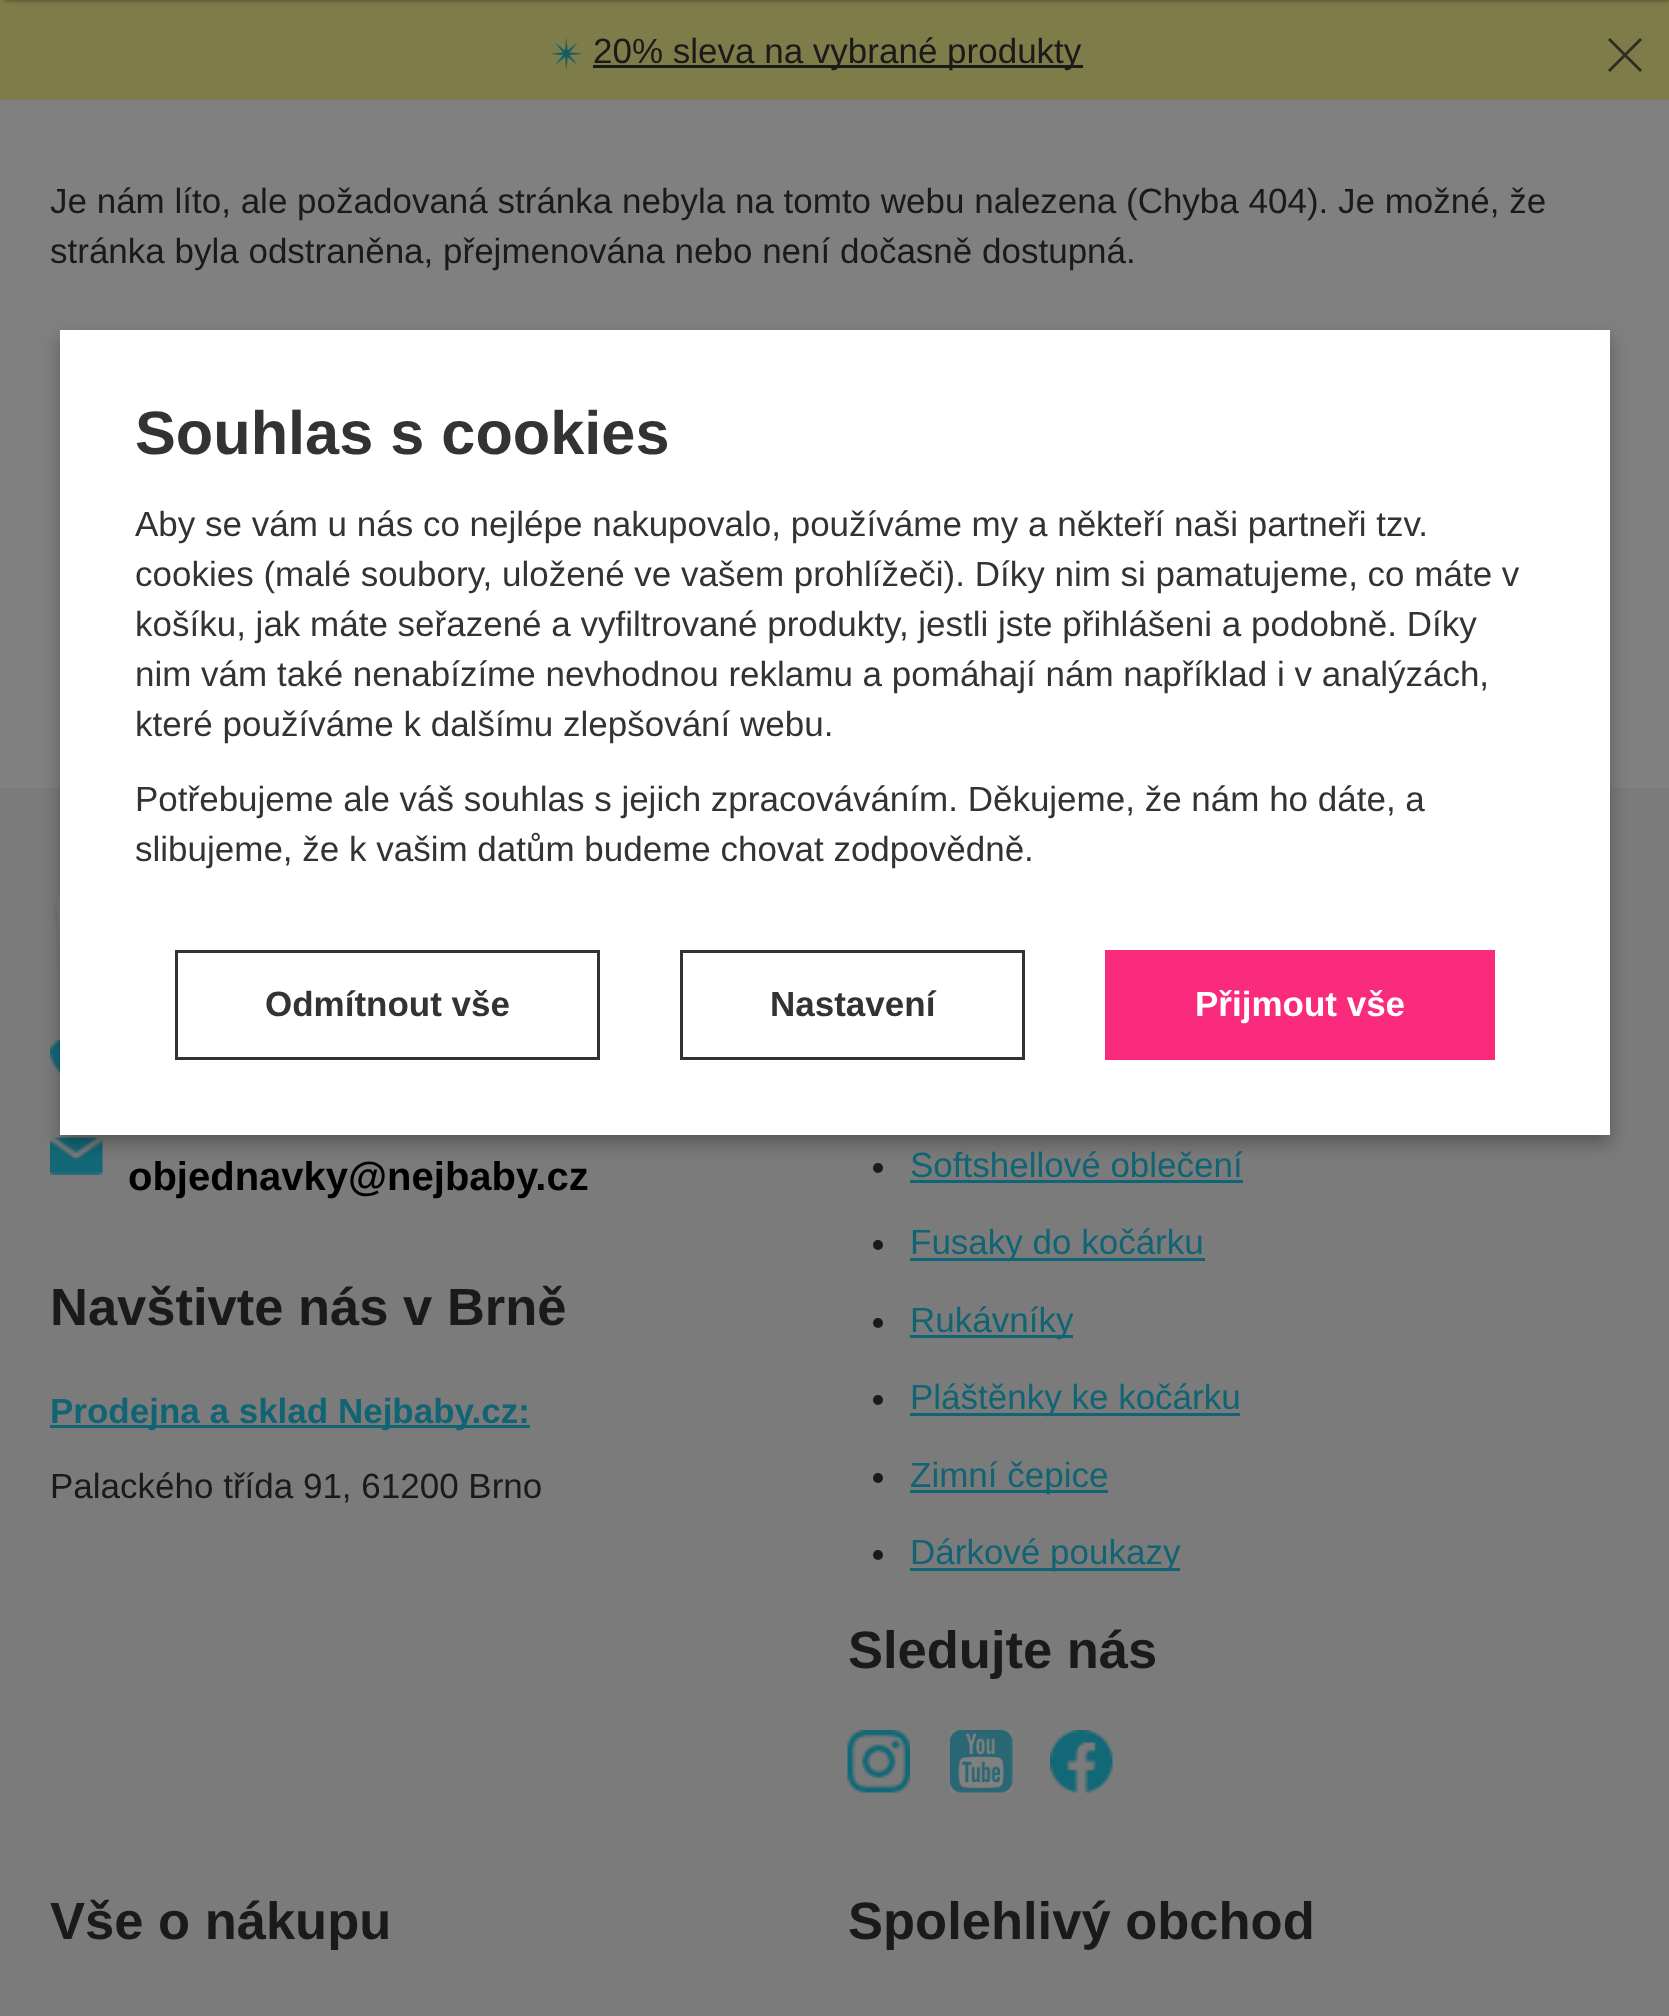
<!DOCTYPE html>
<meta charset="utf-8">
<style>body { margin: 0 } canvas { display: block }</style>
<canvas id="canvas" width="1669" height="2016"></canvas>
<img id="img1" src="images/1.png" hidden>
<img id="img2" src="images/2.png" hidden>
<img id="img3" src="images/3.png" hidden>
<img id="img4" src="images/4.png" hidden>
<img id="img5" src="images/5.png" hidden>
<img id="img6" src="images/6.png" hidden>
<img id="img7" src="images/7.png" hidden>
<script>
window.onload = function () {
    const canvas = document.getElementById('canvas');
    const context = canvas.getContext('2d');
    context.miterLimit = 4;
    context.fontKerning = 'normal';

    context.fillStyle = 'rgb(128, 128, 128)';
    context.fillRect(0, 0, 1669, 2016);
    context.fillStyle = 'rgb(126, 124, 73)';
    context.fillRect(0, 0, 1669, 100);
    context.drawImage(document.getElementById('img1'), 550, 37, 33, 33);
    context.fillStyle = 'rgb(26, 26, 26)';
    context.fillRect(593, 65, 490, 3);
    context.fillStyle = 'rgb(46, 45, 35)';
    context.beginPath();
    context.moveTo(1640, 38);
    context.lineTo(1642, 40);
    context.lineTo(1610, 72);
    context.lineTo(1608, 70);
    context.closePath();
    context.fill();
    context.beginPath();
    context.moveTo(1608, 40);
    context.lineTo(1610, 38);
    context.lineTo(1642, 70);
    context.lineTo(1640, 72);
    context.closePath();
    context.fill();
    context.fillStyle = 'rgba(0, 0, 0, 0.5)';
    context.filter = 'blur(2.5px)';
    context.beginPath();
    context.rect(5, -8, 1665, 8);
    context.fill();
    context.filter = 'none';
    context.fillStyle = 'rgb(123, 123, 123)';
    context.fillRect(0, 788, 1669, 1228);
    context.drawImage(document.getElementById('img2'), 55, 894, 5, 87);
    context.drawImage(document.getElementById('img3'), 50, 1040, 10, 36);
    context.drawImage(document.getElementById('img4'), 50, 1137, 53, 38);
    context.fillStyle = 'rgb(17, 100, 116)';
    context.fillRect(50, 1425, 480, 3);
    context.fillStyle = 'rgb(26, 26, 26)';
    context.beginPath();
    context.arc(878, 1168, 5, 0, 2 * Math.PI);
    context.fill();
    context.fillStyle = 'rgb(17, 100, 116)';
    context.fillRect(910, 1180, 333, 3);
    context.fillStyle = 'rgb(26, 26, 26)';
    context.beginPath();
    context.arc(878, 1245, 5, 0, 2 * Math.PI);
    context.fill();
    context.fillStyle = 'rgb(17, 100, 116)';
    context.fillRect(910, 1258, 295, 3);
    context.fillStyle = 'rgb(26, 26, 26)';
    context.beginPath();
    context.arc(878, 1323, 5, 0, 2 * Math.PI);
    context.fill();
    context.fillStyle = 'rgb(17, 100, 116)';
    context.fillRect(910, 1335, 163, 3);
    context.fillStyle = 'rgb(26, 26, 26)';
    context.beginPath();
    context.arc(878, 1400, 5, 0, 2 * Math.PI);
    context.fill();
    context.fillStyle = 'rgb(17, 100, 116)';
    context.fillRect(910, 1413, 330, 3);
    context.fillStyle = 'rgb(26, 26, 26)';
    context.beginPath();
    context.arc(878, 1478, 5, 0, 2 * Math.PI);
    context.fill();
    context.fillStyle = 'rgb(17, 100, 116)';
    context.fillRect(910, 1490, 198, 3);
    context.fillStyle = 'rgb(26, 26, 26)';
    context.beginPath();
    context.arc(878, 1555, 5, 0, 2 * Math.PI);
    context.fill();
    context.fillStyle = 'rgb(17, 100, 116)';
    context.fillRect(910, 1568, 270, 3);
    context.drawImage(document.getElementById('img5'), 847, 1730, 63, 63);
    context.drawImage(document.getElementById('img6'), 950, 1730, 63, 63);
    context.drawImage(document.getElementById('img7'), 1050, 1730, 63, 63);
    context.fillStyle = 'rgba(0, 0, 0, 0.3)';
    context.filter = 'blur(9px)';
    context.beginPath();
    context.rect(60, 338, 1550, 805);
    context.fill();
    context.filter = 'none';
    context.fillStyle = 'rgb(255, 255, 255)';
    context.fillRect(60, 330, 1550, 805);
    context.strokeStyle = 'rgb(51, 51, 51)';
    context.lineWidth = 3;
    context.strokeRect(176.5, 951.5, 422, 107);
    context.strokeRect(681.5, 951.5, 342, 107);
    context.fillStyle = 'rgb(250, 43, 125)';
    context.fillRect(1105, 950, 390, 110);
    context.font = '35px Liberation Sans';
    context.fillStyle = 'rgb(26, 26, 26)';
    context.fillText('20% sleva na vybrané produkty', 593, 63);
    context.fillText('Je nám líto, ale požadovaná stránka nebyla na tomto webu nalezena (Chyba 404). Je možné, že', 50, 213);
    context.fillText('stránka byla odstraněna, přejmenována nebo není dočasně dostupná.', 50, 263);
    context.font = 'bold 40px Liberation Sans';
    context.fillStyle = 'rgb(0, 0, 0)';
    context.fillText('objednavky@nejbaby.cz', 128, 1190);
    context.font = 'bold 52.5px Liberation Sans';
    context.fillStyle = 'rgb(26, 26, 26)';
    context.fillText('Navštivte nás v Brně', 50, 1325);
    context.font = 'bold 35px Liberation Sans';
    context.fillStyle = 'rgb(17, 100, 116)';
    context.fillText('Prodejna a sklad Nejbaby.cz:', 50, 1423);
    context.font = '35px Liberation Sans';
    context.fillStyle = 'rgb(26, 26, 26)';
    context.fillText('Palackého třída 91, 61200 Brno', 50, 1498);
    context.fillStyle = 'rgb(17, 100, 116)';
    context.fillText('Softshellové oblečení', 910, 1177);
    context.fillText('Fusaky do kočárku', 910, 1254);
    context.fillText('Rukávníky', 910, 1332);
    context.fillText('Pláštěnky ke kočárku', 910, 1409);
    context.fillText('Zimní čepice', 910, 1487);
    context.fillText('Dárkové poukazy', 910, 1564);
    context.font = 'bold 52.5px Liberation Sans';
    context.fillStyle = 'rgb(26, 26, 26)';
    context.fillText('Sledujte nás', 848, 1668);
    context.fillText('Vše o nákupu', 50, 1939);
    context.fillText('Spolehlivý obchod', 848, 1939);
    context.font = 'bold 61.25px Liberation Sans';
    context.fillStyle = 'rgb(51, 51, 51)';
    context.fillText('Souhlas s cookies', 135, 454);
    context.font = '35px Liberation Sans';
    context.fillText('Aby se vám u nás co nejlépe nakupovalo, používáme my a někteří naši partneři tzv.', 135, 536);
    context.fillText('cookies (malé soubory, uložené ve vašem prohlížeči). Díky nim si pamatujeme, co máte v', 135, 586);
    context.fillText('košíku, jak máte seřazené a vyfiltrované produkty, jestli jste přihlášeni a podobně. Díky', 135, 636);
    context.fillText('nim vám také nenabízíme nevhodnou reklamu a pomáhají nám například i v analýzách,', 135, 686);
    context.fillText('které používáme k dalšímu zlepšování webu.', 135, 736);
    context.fillText('Potřebujeme ale váš souhlas s jejich zpracováváním. Děkujeme, že nám ho dáte, a', 135, 811);
    context.fillText('slibujeme, že k vašim datům budeme chovat zodpovědně.', 135, 861);
    context.font = 'bold 35px Liberation Sans';
    context.fillText('Odmítnout vše', 265, 1016);
    context.fillText('Nastavení', 770, 1016);
    context.fillStyle = 'rgb(255, 255, 255)';
    context.fillText('Přijmout vše', 1195, 1016);
};
</script>
